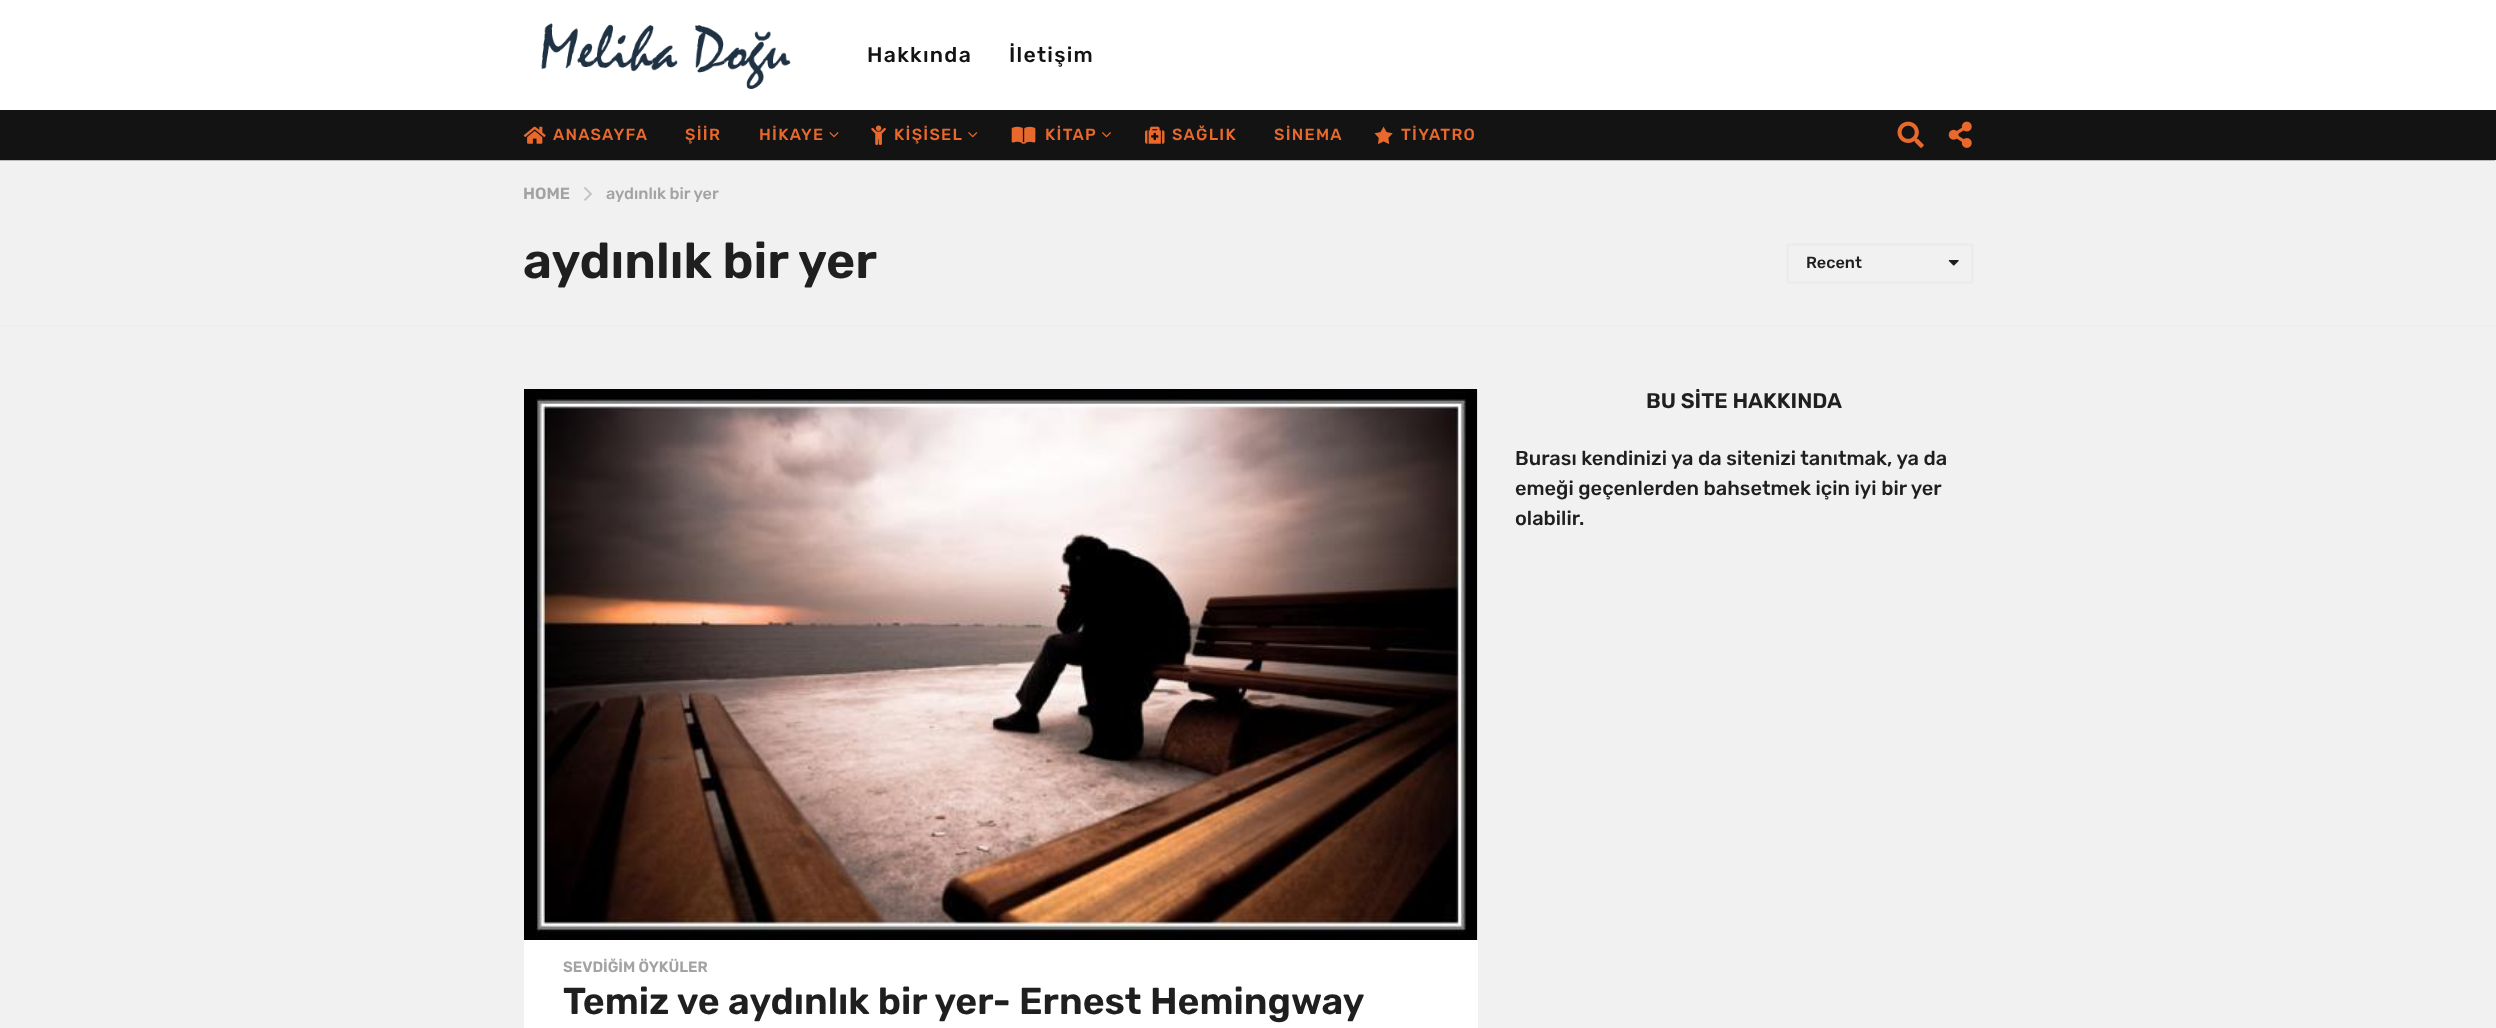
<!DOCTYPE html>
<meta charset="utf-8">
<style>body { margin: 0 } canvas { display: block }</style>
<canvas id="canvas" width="2496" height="1028"></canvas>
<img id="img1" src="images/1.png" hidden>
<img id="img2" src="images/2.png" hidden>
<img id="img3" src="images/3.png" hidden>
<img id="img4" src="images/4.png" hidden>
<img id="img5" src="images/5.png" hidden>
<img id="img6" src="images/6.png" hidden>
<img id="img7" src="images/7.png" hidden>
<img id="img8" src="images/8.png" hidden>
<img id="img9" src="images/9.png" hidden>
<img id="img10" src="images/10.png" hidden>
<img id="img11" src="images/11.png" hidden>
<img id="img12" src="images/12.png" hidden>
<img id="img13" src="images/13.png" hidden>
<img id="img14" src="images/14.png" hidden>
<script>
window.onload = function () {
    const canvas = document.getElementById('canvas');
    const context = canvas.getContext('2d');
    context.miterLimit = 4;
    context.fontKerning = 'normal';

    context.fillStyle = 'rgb(241, 241, 241)';
    context.fillRect(0, 0, 2496, 1028);
    context.fillStyle = 'rgba(42, 42, 42, 0.27)';
    context.filter = 'blur(0.5px)';
    context.beginPath();
    context.rect(-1, 111, 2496, 50);
    context.fill();
    context.filter = 'none';
    context.fillStyle = 'rgb(255, 255, 255)';
    context.fillRect(0, 0, 2496, 110);
    context.drawImage(document.getElementById('img1'), 541, 23, 250, 66);
    context.fillStyle = 'rgb(19, 19, 19)';
    context.fillRect(0, 110, 2496, 50);
    context.drawImage(document.getElementById('img2'), 523, 126, 23, 18);
    context.drawImage(document.getElementById('img3'), 829, 132, 10, 6);
    context.drawImage(document.getElementById('img4'), 871, 125, 15, 20);
    context.drawImage(document.getElementById('img5'), 968, 132, 10, 6);
    context.drawImage(document.getElementById('img6'), 1011, 126, 25, 18);
    context.drawImage(document.getElementById('img7'), 1102, 132, 9, 6);
    context.drawImage(document.getElementById('img8'), 1145, 126, 20, 18);
    context.drawImage(document.getElementById('img9'), 1374, 126, 19, 18);
    context.drawImage(document.getElementById('img10'), 1897, 121, 27, 27);
    context.drawImage(document.getElementById('img11'), 1948, 121, 24, 27);
    context.fillStyle = 'rgb(236, 236, 236)';
    context.fillRect(0, 325, 2496, 1);
    context.drawImage(document.getElementById('img12'), 584, 187, 8, 14);
    context.beginPath();
    context.roundRect(1787.5, 244.5, 185, 38, 2.5);
    context.strokeStyle = 'rgb(236, 236, 236)';
    context.lineWidth = 3;
    context.stroke();
    context.drawImage(document.getElementById('img13'), 1948, 260, 11, 6);
    context.fillStyle = 'rgb(255, 255, 255)';
    context.beginPath();
    context.roundRect(524, 389, 954, 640, 1);
    context.fill();
    context.drawImage(document.getElementById('img14'), 524, 389, 954, 551);
    context.letterSpacing = '1.25px';
    context.font = '500 21.25px Rubik';
    context.fillStyle = 'rgb(19, 19, 19)';
    context.fillText('Hakkında', 867, 62);
    context.fillText('İletişim', 1009, 62);
    context.font = '500 16.25px Rubik';
    context.fillStyle = 'rgb(233, 105, 44)';
    context.fillText('ANASAYFA', 553, 140);
    context.fillText('ŞİİR', 685, 140);
    context.fillText('HİKAYE', 759, 140);
    context.fillText('KİŞİSEL', 894, 140);
    context.fillText('KİTAP', 1045, 140);
    context.fillText('SAĞLIK', 1172, 140);
    context.fillText('SİNEMA', 1274, 140);
    context.fillText('TİYATRO', 1401, 140);
    context.letterSpacing = '0px';
    context.font = '600 16.25px Rubik';
    context.fillStyle = 'rgb(163, 163, 163)';
    context.fillText('HOME', 523, 199);
    context.font = '500 16.25px Rubik';
    context.fillText('aydınlık bir yer', 606, 199);
    context.font = '600 50px Rubik';
    context.fillStyle = 'rgb(31, 31, 31)';
    context.fillText('aydınlık bir yer', 523, 278);
    context.font = '500 16.25px Rubik';
    context.fillText('Recent', 1806, 268);
    context.font = '600 21.25px Rubik';
    context.fillText('BU SİTE HAKKINDA', 1646, 408);
    context.font = '500 20px Rubik';
    context.fillText('Burası kendinizi ya da sitenizi tanıtmak, ya da', 1515, 465);
    context.fillText('emeği geçenlerden bahsetmek için iyi bir yer', 1515, 495);
    context.fillText('olabilir.', 1515, 525);
    context.font = '600 15px Rubik';
    context.fillStyle = 'rgb(163, 163, 163)';
    context.fillText('SEVDİĞİM ÖYKÜLER', 563, 972);
    context.font = '600 37.5px Rubik';
    context.fillStyle = 'rgb(31, 31, 31)';
    context.fillText('Temiz ve aydınlık bir yer- Ernest Hemingway', 563, 1014);
};
</script>
